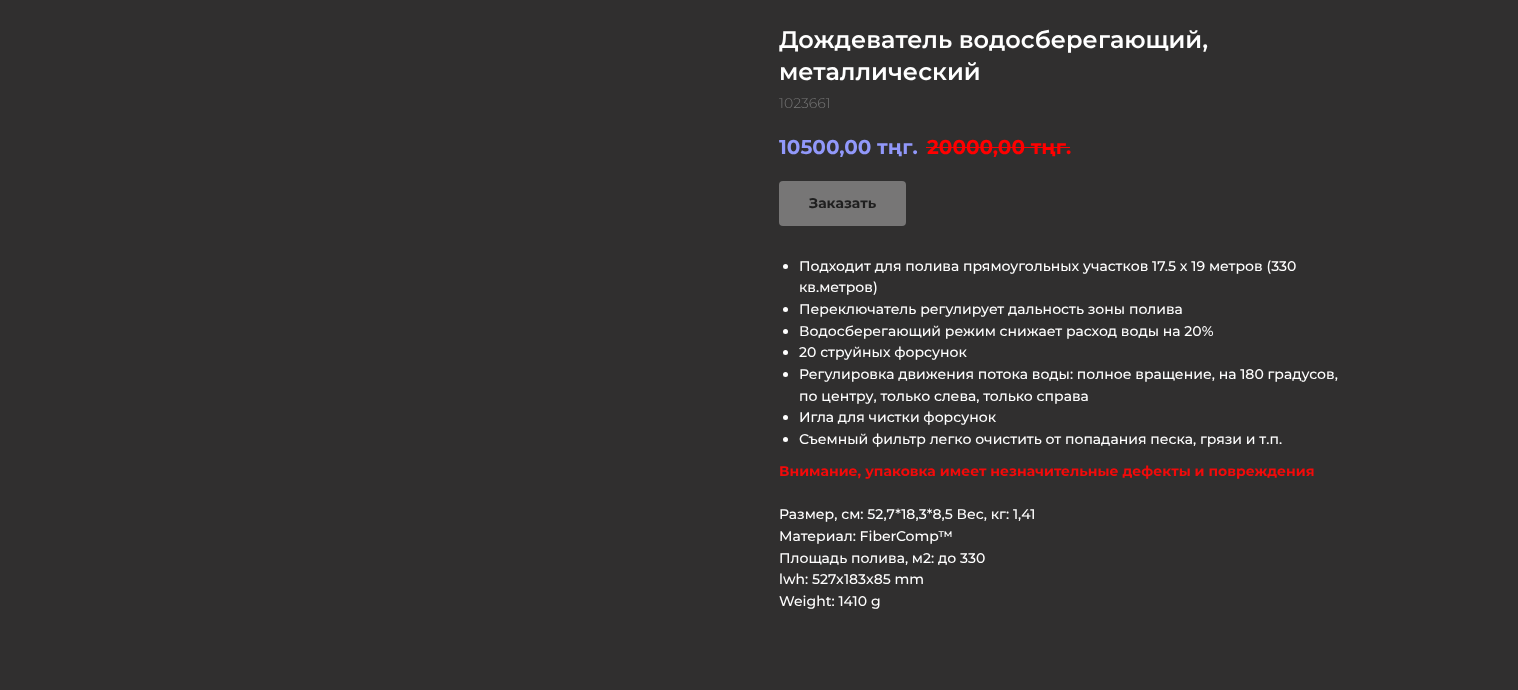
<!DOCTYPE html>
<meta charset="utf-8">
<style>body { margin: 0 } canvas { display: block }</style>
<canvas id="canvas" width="1518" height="690"></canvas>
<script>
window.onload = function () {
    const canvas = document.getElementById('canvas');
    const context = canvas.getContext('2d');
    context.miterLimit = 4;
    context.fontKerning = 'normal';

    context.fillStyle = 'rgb(48, 47, 47)';
    context.fillRect(0, 0, 1518, 690);
    context.fillStyle = 'rgb(255, 0, 0)';
    context.fillRect(926, 147, 144, 1);
    context.fillStyle = 'rgb(119, 118, 118)';
    context.beginPath();
    context.roundRect(779, 181, 127, 45, 4);
    context.fill();
    context.fillStyle = 'rgb(255, 255, 255)';
    context.beginPath();
    context.arc(785.5, 266.5, 2.5, 0, 2 * Math.PI);
    context.fill();
    context.beginPath();
    context.arc(785.5, 309.5, 2.5, 0, 2 * Math.PI);
    context.fill();
    context.beginPath();
    context.arc(785.5, 331.5, 2.5, 0, 2 * Math.PI);
    context.fill();
    context.beginPath();
    context.arc(785.5, 352.5, 2.5, 0, 2 * Math.PI);
    context.fill();
    context.beginPath();
    context.arc(785.5, 374.5, 2.5, 0, 2 * Math.PI);
    context.fill();
    context.beginPath();
    context.arc(785.5, 417.5, 2.5, 0, 2 * Math.PI);
    context.fill();
    context.beginPath();
    context.arc(785.5, 439.5, 2.5, 0, 2 * Math.PI);
    context.fill();
    context.font = '600 24px Montserrat';
    context.fillText('Дождеватель водосберегающий,', 779, 48);
    context.fillText('металлический', 779, 80);
    context.font = '300 14px Montserrat';
    context.fillStyle = 'rgb(119, 119, 119)';
    context.fillText('1023661', 779, 108);
    context.font = 'bold 20px Montserrat';
    context.fillStyle = 'rgb(145, 152, 250)';
    context.fillText('10500,00 тңг.', 779, 154);
    context.fillStyle = 'rgb(255, 0, 0)';
    context.fillText('20000,00 тңг.', 927, 154);
    context.font = 'bold 14px Montserrat';
    context.fillStyle = 'rgb(31, 31, 31)';
    context.fillText('Заказать', 809, 208);
    context.font = '500 14px Montserrat';
    context.fillStyle = 'rgb(255, 255, 255)';
    context.fillText('Подходит для полива прямоугольных участков 17.5 x 19 метров (330', 799, 271);
    context.fillText('кв.метров)', 799, 292);
    context.fillText('Переключатель регулирует дальность зоны полива', 799, 314);
    context.fillText('Водосберегающий режим снижает расход воды на 20%', 799, 336);
    context.fillText('20 струйных форсунок', 799, 357);
    context.fillText('Регулировка движения потока воды: полное вращение, на 180 градусов,', 799, 379);
    context.fillText('по центру, только слева, только справа', 799, 401);
    context.fillText('Игла для чистки форсунок', 799, 422);
    context.fillText('Съемный фильтр легко очистить от попадания песка, грязи и т.п.', 799, 444);
    context.font = 'bold 14px Montserrat';
    context.fillStyle = 'rgb(242, 10, 10)';
    context.fillText('Внимание, упаковка имеет незначительные дефекты и повреждения', 779, 476);
    context.font = '500 14px Montserrat';
    context.fillStyle = 'rgb(255, 255, 255)';
    context.fillText('Размер, см: 52,7*18,3*8,5 Вес, кг: 1,41', 779, 519);
    context.fillText('Материал: FiberComp™', 779, 541);
    context.fillText('Площадь полива, м2: до 330', 779, 563);
    context.fillText('lwh: 527x183x85 mm', 779, 584);
    context.fillText('Weight: 1410 g', 779, 606);
};
</script>
